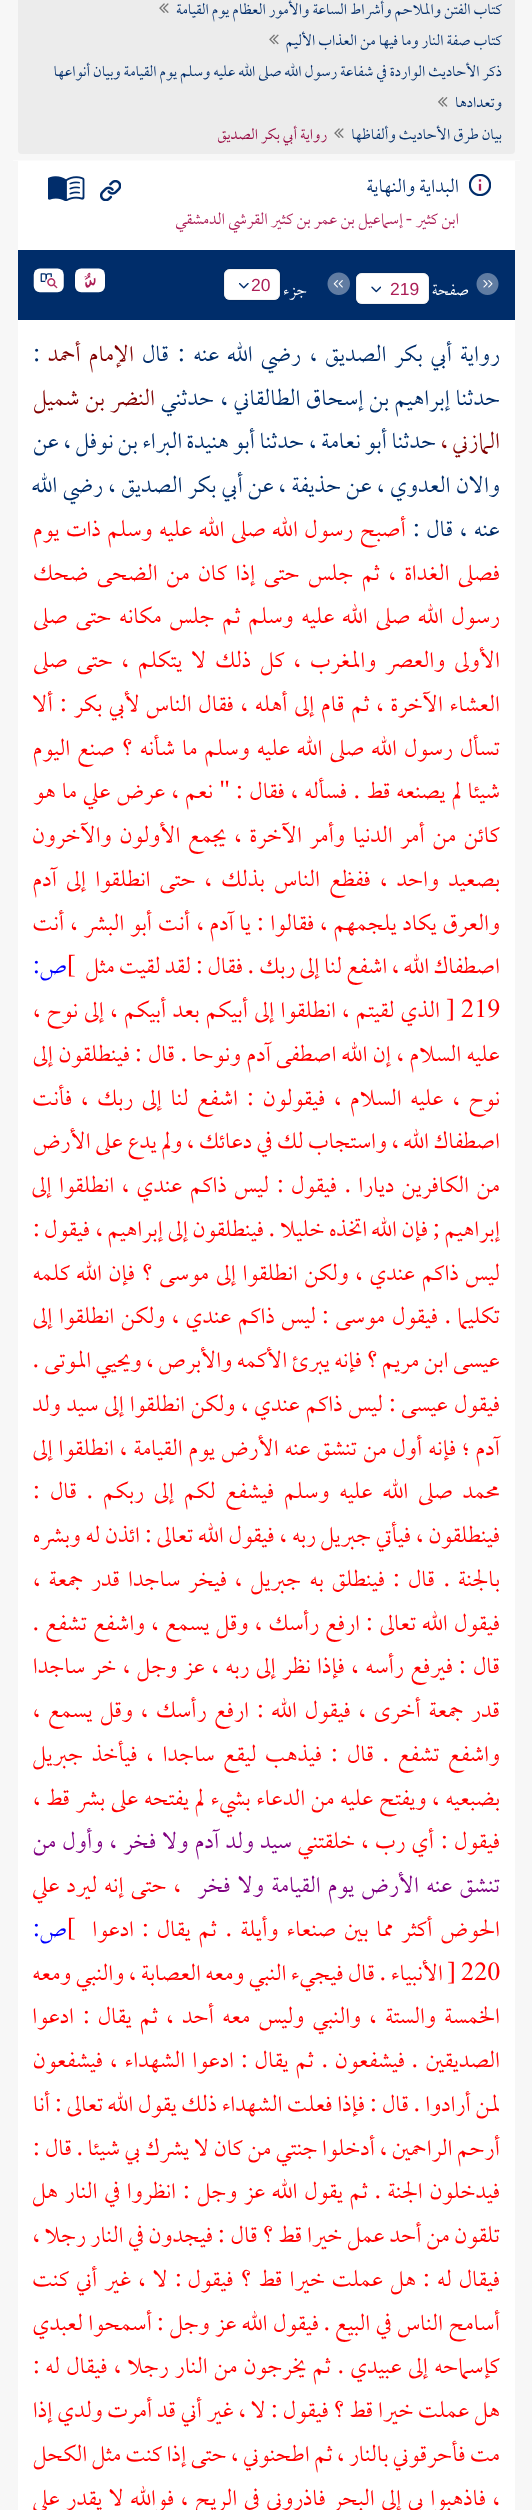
<!DOCTYPE html>
<meta charset="utf-8">
<style>body { margin: 0 } canvas { display: block }</style>
<canvas id="canvas" width="532" height="2510"></canvas>
<img id="img1" src="images/1.png" hidden>
<img id="img2" src="images/2.png" hidden>
<img id="img3" src="images/3.png" hidden>
<img id="img4" src="images/4.png" hidden>
<img id="img5" src="images/5.png" hidden>
<img id="img6" src="images/6.png" hidden>
<img id="img7" src="images/7.png" hidden>
<img id="img8" src="images/8.png" hidden>
<img id="img9" src="images/9.png" hidden>
<img id="img10" src="images/10.png" hidden>
<img id="img11" src="images/11.png" hidden>
<img id="img12" src="images/12.png" hidden>
<script>
window.onload = function () {
    const canvas = document.getElementById('canvas');
    const context = canvas.getContext('2d');
    context.miterLimit = 4;
    context.fontKerning = 'normal';

    context.fillStyle = 'rgb(247, 247, 247)';
    context.fillRect(0, 0, 532, 2510);
    context.fillStyle = 'rgb(251, 251, 251)';
    context.fillRect(13, 160, 507, 1);
    context.fillStyle = 'rgb(236, 236, 236)';
    context.beginPath();
    context.roundRect(18, -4, 497, 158, 4);
    context.fill();
    context.drawImage(document.getElementById('img1'), 159, 3, 10, 10);
    context.drawImage(document.getElementById('img2'), 269, 34, 10, 11);
    context.drawImage(document.getElementById('img3'), 438, 97, 10, 10);
    context.drawImage(document.getElementById('img1'), 334, 128, 10, 10);
    context.fillStyle = 'rgb(255, 255, 255)';
    context.fillRect(18, 161, 497, 89);
    context.drawImage(document.getElementById('img4'), 469, 174, 22, 22);
    context.drawImage(document.getElementById('img5'), 100, 180, 21, 21);
    context.drawImage(document.getElementById('img6'), 48, 176, 37, 25);
    context.fillStyle = 'rgb(0, 45, 106)';
    context.fillRect(18, 250, 497, 70);
    context.drawImage(document.getElementById('img7'), 476, 273, 23, 22);
    context.fillStyle = 'rgba(0, 0, 0, 0.16)';
    context.filter = 'blur(1px)';
    context.beginPath();
    context.roundRect(356, 273, 73, 31, 6);
    context.fill();
    context.filter = 'none';
    context.fillStyle = 'rgb(255, 255, 255)';
    context.beginPath();
    context.roundRect(356, 273, 73, 31, 6);
    context.fill();
    context.beginPath();
    context.roundRect(356.5, 273.5, 72, 30, 5.5);
    context.strokeStyle = 'rgba(234, 234, 234, 0.69)';
    context.stroke();
    context.drawImage(document.getElementById('img8'), 371, 286, 10, 7);
    context.drawImage(document.getElementById('img9'), 327, 272, 23, 23);
    context.fillStyle = 'rgba(0, 0, 0, 0.16)';
    context.filter = 'blur(1px)';
    context.beginPath();
    context.roundRect(224, 269, 56, 31, 6);
    context.fill();
    context.filter = 'none';
    context.fillStyle = 'rgb(255, 255, 255)';
    context.beginPath();
    context.roundRect(224, 269, 56, 31, 6);
    context.fill();
    context.beginPath();
    context.roundRect(224.5, 269.5, 55, 30, 5.5);
    context.stroke();
    context.drawImage(document.getElementById('img10'), 239, 283, 10, 6);
    context.drawImage(document.getElementById('img11'), 74, 268, 32, 25);
    context.drawImage(document.getElementById('img12'), 33, 268, 32, 25);
    context.fillRect(18, 320, 497, 2190);
    context.direction = 'rtl';
    context.font = '300 17.5px "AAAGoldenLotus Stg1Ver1"';
    context.fillStyle = 'rgb(0, 45, 106)';
    context.fillText('كتاب الفتن والملاحم وأشراط الساعة والأمور العظام يوم القيامة', 502, 14);
    context.fillText('كتاب صفة النار وما فيها من العذاب الأليم', 502, 45);
    context.fillText('ذكر الأحاديث الواردة في شفاعة رسول الله صلى الله عليه وسلم يوم القيامة وبيان أنواعها', 502, 76);
    context.fillText('وتعدادها', 502, 107);
    context.fillText('بيان طرق الأحاديث وألفاظها', 502, 139);
    context.fillStyle = 'rgb(151, 12, 68)';
    context.fillText('رواية أبي بكر الصديق', 327, 139);
    context.font = '300 22px "AAAGoldenLotus Stg1Ver1"';
    context.fillStyle = 'rgb(0, 45, 106)';
    context.fillText('البداية والنهاية', 459, 192);
    context.font = '300 18.75px "AAAGoldenLotus Stg1Ver1"';
    context.fillStyle = 'rgb(171, 30, 86)';
    context.fillText('ابن كثير', 459, 224);
    context.font = '18.75px Liberation Serif';
    context.fillText('-', 412, 224);
    context.font = '300 18.75px "AAAGoldenLotus Stg1Ver1"';
    context.fillText('إسماعيل بن عمر بن كثير القرشي الدمشقي', 403, 224);
    context.fillStyle = 'rgb(255, 255, 255)';
    context.fillText('صفحة', 469, 295);
    context.direction = 'ltr';
    context.font = '17.5px Liberation Sans';
    context.fillStyle = 'rgb(171, 30, 86)';
    context.fillText('219', 390, 295);
    context.fillText('20', 251, 291);
    context.direction = 'rtl';
    context.font = '300 18.75px "AAAGoldenLotus Stg1Ver1"';
    context.fillStyle = 'rgb(255, 255, 255)';
    context.fillText('جزء', 307, 295);
    context.font = '300 26.25px "AAAGoldenLotus Stg1Ver1"';
    context.fillStyle = 'rgb(0, 45, 106)';
    context.fillText('رواية', 500, 361);
    context.wordSpacing = '3.5px';
    context.fillText('أبي بكر الصديق ،', 452, 361);
    context.fillText('رضي الله عنه', 301, 361);
    context.wordSpacing = '0px';
    context.font = '26.25px Liberation Serif';
    context.fillText(':', 185, 361);
    context.font = '300 26.25px "AAAGoldenLotus Stg1Ver1"';
    context.fillText('قال', 169, 361);
    context.wordSpacing = '3.5px';
    context.fillStyle = 'rgb(128, 0, 0)';
    context.fillText('الإمام أحمد', 134, 361);
    context.wordSpacing = '0px';
    context.direction = 'ltr';
    context.font = '26.25px Liberation Serif';
    context.fillStyle = 'rgb(0, 45, 106)';
    context.fillText(':', 33, 361);
    context.direction = 'rtl';
    context.font = '300 26.25px "AAAGoldenLotus Stg1Ver1"';
    context.fillText('حدثنا', 500, 405);
    context.wordSpacing = '1px';
    context.fillText('إبراهيم بن إسحاق الطالقاني ،', 450, 405);
    context.wordSpacing = '0px';
    context.fillText('حدثني', 214, 405);
    context.wordSpacing = '1px';
    context.fillStyle = 'rgb(128, 0, 0)';
    context.fillText('النضر بن شميل', 155, 405);
    context.wordSpacing = '0px';
    context.fillText('المازني ،', 500, 448);
    context.fillStyle = 'rgb(0, 45, 106)';
    context.fillText('حدثنا', 436, 448);
    context.fillText('أبو نعامة ،', 387, 448);
    context.fillText('حدثنا', 304, 448);
    context.fillText('أبو هنيدة البراء بن نوفل', 255, 448);
    context.fillText('، عن', 71, 448);
    context.wordSpacing = '1px';
    context.fillText('والان العدوي ،', 500, 492);
    context.wordSpacing = '0px';
    context.fillText('عن', 372, 492);
    context.wordSpacing = '1px';
    context.fillText('حذيفة ،', 341, 492);
    context.wordSpacing = '0px';
    context.fillText('عن', 274, 492);
    context.wordSpacing = '1px';
    context.fillText('أبي بكر الصديق ،', 243, 492);
    context.fillText('رضي الله', 103, 492);
    context.wordSpacing = '2.1px';
    context.fillText('عنه ، قال', 500, 536);
    context.wordSpacing = '0px';
    context.font = '26.25px Liberation Serif';
    context.fillText(':', 420, 536);
    context.wordSpacing = '2.1px';
    context.font = '300 26.25px "AAAGoldenLotus Stg1Ver1"';
    context.fillStyle = 'rgb(255, 0, 0)';
    context.fillText('أصبح رسول الله صلى الله عليه وسلم ذات يوم', 406, 536);
    context.wordSpacing = '4px';
    context.fillText('فصلى الغداة ، ثم جلس حتى إذا كان من الضحى ضحك', 500, 580);
    context.wordSpacing = '3.25px';
    context.fillText('رسول الله صلى الله عليه وسلم ثم جلس مكانه حتى صلى', 500, 623);
    context.wordSpacing = '4.5px';
    context.fillText('الأولى والعصر والمغرب ، كل ذلك لا يتكلم ، حتى صلى', 500, 667);
    context.wordSpacing = '2.25px';
    context.fillText('العشاء الآخرة ، ثم قام إلى أهله ، فقال الناس', 500, 711);
    context.fillText('لأبي بكر', 140, 711);
    context.wordSpacing = '0px';
    context.font = '26.25px Liberation Serif';
    context.fillText(':', 67, 711);
    context.font = '300 26.25px "AAAGoldenLotus Stg1Ver1"';
    context.fillText('ألا', 53, 711);
    context.wordSpacing = '2.6px';
    context.fillText('تسأل رسول الله صلى الله عليه وسلم ما شأنه ؟ صنع اليوم', 500, 755);
    context.wordSpacing = '1.5px';
    context.fillText('شيئا لم يصنعه قط', 500, 798);
    context.wordSpacing = '0px';
    context.font = '26.25px Liberation Serif';
    context.fillText('.', 360, 798);
    context.wordSpacing = '1.5px';
    context.font = '300 26.25px "AAAGoldenLotus Stg1Ver1"';
    context.fillText('فسأله ، فقال', 347, 798);
    context.wordSpacing = '0px';
    context.font = '26.25px Liberation Serif';
    context.fillText(':', 243, 798);
    context.fillText('"', 230, 798);
    context.wordSpacing = '1.5px';
    context.font = '300 26.25px "AAAGoldenLotus Stg1Ver1"';
    context.fillText('نعم ، عرض علي ما هو', 213, 798);
    context.wordSpacing = '3.25px';
    context.fillText('كائن من أمر الدنيا وأمر الآخرة ، يجمع الأولون والآخرون', 500, 842);
    context.wordSpacing = '4.75px';
    context.fillText('بصعيد واحد ، ففظع الناس بذلك ، حتى انطلقوا إلى', 500, 886);
    context.wordSpacing = '0px';
    context.fillText('آدم', 57, 886);
    context.wordSpacing = '1.5px';
    context.fillText('والعرق يكاد يلجمهم ، فقالوا', 500, 930);
    context.wordSpacing = '0px';
    context.font = '26.25px Liberation Serif';
    context.fillText(':', 264, 930);
    context.font = '300 26.25px "AAAGoldenLotus Stg1Ver1"';
    context.fillText('يا', 251, 930);
    context.wordSpacing = '1px';
    context.fillText('آدم ،', 234, 930);
    context.wordSpacing = '1.5px';
    context.fillText('أنت أبو البشر ، أنت', 190, 930);
    context.wordSpacing = '0px';
    context.fillText('اصطفاك الله ، اشفع لنا إلى ربك', 500, 973);
    context.font = '26.25px Liberation Serif';
    context.fillText('.', 254, 973);
    context.font = '300 26.25px "AAAGoldenLotus Stg1Ver1"';
    context.fillText('فقال', 243, 973);
    context.font = '26.25px Liberation Serif';
    context.fillText(':', 203, 973);
    context.font = '300 26.25px "AAAGoldenLotus Stg1Ver1"';
    context.fillText('لقد لقيت مثل', 191, 973);
    context.direction = 'ltr';
    context.font = '26.25px Liberation Serif';
    context.fillText('[', 67, 973);
    context.direction = 'rtl';
    context.font = '300 26.25px "AAAGoldenLotus Stg1Ver1"';
    context.fillStyle = 'rgb(0, 0, 255)';
    context.fillText('ص', 67, 973);
    context.font = '26.25px Liberation Serif';
    context.fillText(':', 40, 973);
    context.direction = 'ltr';
    context.font = '300 26.25px "AAAGoldenLotus Stg1Ver1"';
    context.fillStyle = 'rgb(255, 0, 0)';
    context.fillText('219', 461, 1017);
    context.font = '26.25px Liberation Serif';
    context.fillText(']', 446, 1017);
    context.wordSpacing = '1.75px';
    context.direction = 'rtl';
    context.font = '300 26.25px "AAAGoldenLotus Stg1Ver1"';
    context.fillText('الذي لقيتم ، انطلقوا إلى أبيكم بعد أبيكم ، إلى', 440, 1017);
    context.wordSpacing = '0px';
    context.fillText('نوح', 78, 1017);
    context.direction = 'ltr';
    context.fillText('،', 33, 1017);
    context.wordSpacing = '1px';
    context.direction = 'rtl';
    context.fillText('عليه السلام ، إن الله اصطفى', 500, 1061);
    context.wordSpacing = '0px';
    context.fillText('آدم', 271, 1061);
    context.fillText('ونوحا', 241, 1061);
    context.font = '26.25px Liberation Serif';
    context.fillText('.', 187, 1061);
    context.font = '300 26.25px "AAAGoldenLotus Stg1Ver1"';
    context.fillText('قال', 175, 1061);
    context.font = '26.25px Liberation Serif';
    context.fillText(':', 142, 1061);
    context.wordSpacing = '1px';
    context.font = '300 26.25px "AAAGoldenLotus Stg1Ver1"';
    context.fillText('فينطلقون إلى', 130, 1061);
    context.wordSpacing = '0px';
    context.fillText('نوح', 500, 1105);
    context.wordSpacing = '4.25px';
    context.fillText('، عليه السلام ، فيقولون', 460, 1105);
    context.wordSpacing = '0px';
    context.font = '26.25px Liberation Serif';
    context.fillText(':', 254, 1105);
    context.wordSpacing = '4.25px';
    context.font = '300 26.25px "AAAGoldenLotus Stg1Ver1"';
    context.fillText('اشفع لنا إلى ربك ، فأنت', 238, 1105);
    context.wordSpacing = '0.1px';
    context.fillText('اصطفاك الله ، واستجاب لك في دعائك ، ولم يدع على الأرض', 500, 1148);
    context.wordSpacing = '3px';
    context.fillText('من الكافرين ديارا', 500, 1192);
    context.wordSpacing = '0px';
    context.font = '26.25px Liberation Serif';
    context.fillText('.', 351, 1192);
    context.font = '300 26.25px "AAAGoldenLotus Stg1Ver1"';
    context.fillText('فيقول', 337, 1192);
    context.font = '26.25px Liberation Serif';
    context.fillText(':', 284, 1192);
    context.wordSpacing = '3px';
    context.font = '300 26.25px "AAAGoldenLotus Stg1Ver1"';
    context.fillText('ليس ذاكم عندي ، انطلقوا إلى', 269, 1192);
    context.wordSpacing = '0px';
    context.fillText('إبراهيم', 500, 1236);
    context.font = '26.25px Liberation Serif';
    context.fillText(';', 440, 1236);
    context.font = '300 26.25px "AAAGoldenLotus Stg1Ver1"';
    context.fillText('فإن الله اتخذه خليلا', 428, 1236);
    context.font = '26.25px Liberation Serif';
    context.fillText('.', 275, 1236);
    context.font = '300 26.25px "AAAGoldenLotus Stg1Ver1"';
    context.fillText('فينطلقون إلى', 264, 1236);
    context.fillText('إبراهيم ،', 163, 1236);
    context.fillText('فيقول', 90, 1236);
    context.font = '26.25px Liberation Serif';
    context.fillText(':', 40, 1236);
    context.wordSpacing = '2.1px';
    context.font = '300 26.25px "AAAGoldenLotus Stg1Ver1"';
    context.fillText('ليس ذاكم عندي ، ولكن انطلقوا إلى', 500, 1280);
    context.fillText('موسى ؟', 209, 1280);
    context.fillText('فإن الله كلمه', 135, 1280);
    context.wordSpacing = '0px';
    context.fillText('تكليما', 500, 1323);
    context.font = '26.25px Liberation Serif';
    context.fillText('.', 451, 1323);
    context.font = '300 26.25px "AAAGoldenLotus Stg1Ver1"';
    context.fillText('فيقول', 438, 1323);
    context.fillText('موسى', 385, 1323);
    context.font = '26.25px Liberation Serif';
    context.fillText(':', 329, 1323);
    context.wordSpacing = '2px';
    context.font = '300 26.25px "AAAGoldenLotus Stg1Ver1"';
    context.fillText('ليس ذاكم عندي ، ولكن انطلقوا إلى', 316, 1323);
    context.wordSpacing = '0px';
    context.fillText('عيسى ابن مريم ؟', 500, 1367);
    context.fillText('فإنه يبرئ الأكمه والأبرص ، ويحيي الموتى', 362, 1367);
    context.font = '26.25px Liberation Serif';
    context.fillText('.', 39, 1367);
    context.font = '300 26.25px "AAAGoldenLotus Stg1Ver1"';
    context.fillText('فيقول', 500, 1411);
    context.fillText('عيسى', 448, 1411);
    context.font = '26.25px Liberation Serif';
    context.fillText(':', 396, 1411);
    context.wordSpacing = '1.25px';
    context.font = '300 26.25px "AAAGoldenLotus Stg1Ver1"';
    context.fillText('ليس ذاكم عندي ، ولكن انطلقوا إلى سيد ولد', 383, 1411);
    context.wordSpacing = '1.5px';
    context.fillText('آدم ؛ فإنه أول من تنشق عنه الأرض يوم القيامة ، انطلقوا إلى', 500, 1455);
    context.wordSpacing = '0px';
    context.fillText('محمد', 500, 1498);
    context.wordSpacing = '5.5px';
    context.fillText('صلى الله عليه وسلم فيشفع لكم إلى ربكم', 453, 1498);
    context.wordSpacing = '0px';
    context.font = '26.25px Liberation Serif';
    context.fillText('.', 93, 1498);
    context.font = '300 26.25px "AAAGoldenLotus Stg1Ver1"';
    context.fillText('قال', 77, 1498);
    context.font = '26.25px Liberation Serif';
    context.fillText(':', 40, 1498);
    context.wordSpacing = '0.5px';
    context.font = '300 26.25px "AAAGoldenLotus Stg1Ver1"';
    context.fillText('فينطلقون ، فيأتي', 500, 1542);
    context.wordSpacing = '0px';
    context.fillText('جبريل', 371, 1542);
    context.wordSpacing = '0.5px';
    context.fillText('ربه ، فيقول الله تعالى', 316, 1542);
    context.wordSpacing = '0px';
    context.font = '26.25px Liberation Serif';
    context.fillText(':', 152, 1542);
    context.wordSpacing = '0.5px';
    context.font = '300 26.25px "AAAGoldenLotus Stg1Ver1"';
    context.fillText('ائذن له وبشره', 140, 1542);
    context.wordSpacing = '0px';
    context.fillText('بالجنة', 500, 1586);
    context.font = '26.25px Liberation Serif';
    context.fillText('.', 450, 1586);
    context.font = '300 26.25px "AAAGoldenLotus Stg1Ver1"';
    context.fillText('قال', 435, 1586);
    context.font = '26.25px Liberation Serif';
    context.fillText(':', 400, 1586);
    context.wordSpacing = '3.5px';
    context.font = '300 26.25px "AAAGoldenLotus Stg1Ver1"';
    context.fillText('فينطلق به', 385, 1586);
    context.fillText('جبريل ،', 301, 1586);
    context.fillText('فيخر ساجدا قدر جمعة ،', 227, 1586);
    context.wordSpacing = '1.75px';
    context.fillText('فيقول الله تعالى', 500, 1630);
    context.wordSpacing = '0px';
    context.font = '26.25px Liberation Serif';
    context.fillText(':', 373, 1630);
    context.wordSpacing = '1.75px';
    context.font = '300 26.25px "AAAGoldenLotus Stg1Ver1"';
    context.fillText('ارفع رأسك ، وقل يسمع ، واشفع تشفع', 360, 1630);
    context.wordSpacing = '0px';
    context.font = '26.25px Liberation Serif';
    context.fillText('.', 39, 1630);
    context.font = '300 26.25px "AAAGoldenLotus Stg1Ver1"';
    context.fillText('قال', 500, 1673);
    context.font = '26.25px Liberation Serif';
    context.fillText(':', 466, 1673);
    context.wordSpacing = '2px';
    context.font = '300 26.25px "AAAGoldenLotus Stg1Ver1"';
    context.fillText('فيرفع رأسه ، فإذا نظر إلى ربه ، عز وجل ، خر ساجدا', 453, 1673);
    context.wordSpacing = '3.25px';
    context.fillText('قدر جمعة أخرى ، فيقول الله', 500, 1717);
    context.wordSpacing = '0px';
    context.font = '26.25px Liberation Serif';
    context.fillText(':', 264, 1717);
    context.wordSpacing = '3.25px';
    context.font = '300 26.25px "AAAGoldenLotus Stg1Ver1"';
    context.fillText('ارفع رأسك ، وقل يسمع ،', 249, 1717);
    context.wordSpacing = '4.25px';
    context.fillText('واشفع تشفع', 500, 1761);
    context.wordSpacing = '0px';
    context.font = '26.25px Liberation Serif';
    context.fillText('.', 389, 1761);
    context.font = '300 26.25px "AAAGoldenLotus Stg1Ver1"';
    context.fillText('قال', 374, 1761);
    context.font = '26.25px Liberation Serif';
    context.fillText(':', 338, 1761);
    context.wordSpacing = '4.25px';
    context.font = '300 26.25px "AAAGoldenLotus Stg1Ver1"';
    context.fillText('فيذهب ليقع ساجدا ، فيأخذ', 322, 1761);
    context.wordSpacing = '0px';
    context.fillText('جبريل', 83, 1761);
    context.wordSpacing = '1.25px';
    context.fillText('بضبعيه ، ويفتح عليه من الدعاء بشيء لم يفتحه على بشر قط ،', 500, 1805);
    context.wordSpacing = '0px';
    context.fillText('فيقول', 500, 1848);
    context.font = '26.25px Liberation Serif';
    context.fillText(':', 448, 1848);
    context.wordSpacing = '1.75px';
    context.font = '300 26.25px "AAAGoldenLotus Stg1Ver1"';
    context.fillText('أي رب ، خلقتني', 434, 1848);
    context.fillStyle = 'rgb(128, 0, 128)';
    context.fillText('سيد ولد آدم ولا فخر ، وأول من', 292, 1848);
    context.wordSpacing = '2.75px';
    context.fillText('تنشق عنه الأرض يوم القيامة ولا فخر', 500, 1892);
    context.wordSpacing = '2.5px';
    context.fillStyle = 'rgb(255, 0, 0)';
    context.fillText('، حتى إنه ليرد علي', 181, 1892);
    context.wordSpacing = '3.5px';
    context.fillText('الحوض أكثر مما بين صنعاء وأيلة', 500, 1936);
    context.wordSpacing = '0px';
    context.font = '26.25px Liberation Serif';
    context.fillText('.', 232, 1936);
    context.wordSpacing = '3.5px';
    context.font = '300 26.25px "AAAGoldenLotus Stg1Ver1"';
    context.fillText('ثم يقال', 217, 1936);
    context.wordSpacing = '0px';
    context.font = '26.25px Liberation Serif';
    context.fillText(':', 149, 1936);
    context.font = '300 26.25px "AAAGoldenLotus Stg1Ver1"';
    context.fillText('ادعوا', 134, 1936);
    context.direction = 'ltr';
    context.font = '26.25px Liberation Serif';
    context.fillText('[', 67, 1936);
    context.direction = 'rtl';
    context.font = '300 26.25px "AAAGoldenLotus Stg1Ver1"';
    context.fillStyle = 'rgb(0, 0, 255)';
    context.fillText('ص', 67, 1936);
    context.font = '26.25px Liberation Serif';
    context.fillText(':', 40, 1936);
    context.direction = 'ltr';
    context.font = '300 26.25px "AAAGoldenLotus Stg1Ver1"';
    context.fillStyle = 'rgb(255, 0, 0)';
    context.fillText('220', 461, 1980);
    context.font = '26.25px Liberation Serif';
    context.fillText(']', 447, 1980);
    context.direction = 'rtl';
    context.font = '300 26.25px "AAAGoldenLotus Stg1Ver1"';
    context.fillText('الأنبياء', 443, 1980);
    context.font = '26.25px Liberation Serif';
    context.fillText('.', 386, 1980);
    context.font = '300 26.25px "AAAGoldenLotus Stg1Ver1"';
    context.fillText('قال فيجيء النبي ومعه العصابة ، والنبي ومعه', 375, 1980);
    context.wordSpacing = '3.75px';
    context.fillText('الخمسة والستة ، والنبي وليس معه أحد ، ثم يقال', 500, 2023);
    context.wordSpacing = '0px';
    context.font = '26.25px Liberation Serif';
    context.fillText(':', 90, 2023);
    context.font = '300 26.25px "AAAGoldenLotus Stg1Ver1"';
    context.fillText('ادعوا', 74, 2023);
    context.fillText('الصديقين', 500, 2067);
    context.font = '26.25px Liberation Serif';
    context.fillText('.', 418, 2067);
    context.font = '300 26.25px "AAAGoldenLotus Stg1Ver1"';
    context.fillText('فيشفعون', 405, 2067);
    context.font = '26.25px Liberation Serif';
    context.fillText('.', 328, 2067);
    context.wordSpacing = '2.6px';
    context.font = '300 26.25px "AAAGoldenLotus Stg1Ver1"';
    context.fillText('ثم يقال', 314, 2067);
    context.wordSpacing = '0px';
    context.font = '26.25px Liberation Serif';
    context.fillText(':', 248, 2067);
    context.wordSpacing = '2.6px';
    context.font = '300 26.25px "AAAGoldenLotus Stg1Ver1"';
    context.fillText('ادعوا الشهداء ، فيشفعون', 234, 2067);
    context.wordSpacing = '0.25px';
    context.fillText('لمن أرادوا', 500, 2111);
    context.wordSpacing = '0px';
    context.font = '26.25px Liberation Serif';
    context.fillText('.', 420, 2111);
    context.font = '300 26.25px "AAAGoldenLotus Stg1Ver1"';
    context.fillText('قال', 409, 2111);
    context.font = '26.25px Liberation Serif';
    context.fillText(':', 377, 2111);
    context.wordSpacing = '0.25px';
    context.font = '300 26.25px "AAAGoldenLotus Stg1Ver1"';
    context.fillText('فإذا فعلت الشهداء ذلك يقول الله تعالى', 365, 2111);
    context.wordSpacing = '0px';
    context.font = '26.25px Liberation Serif';
    context.fillText(':', 62, 2111);
    context.font = '300 26.25px "AAAGoldenLotus Stg1Ver1"';
    context.fillText('أنا', 50, 2111);
    context.wordSpacing = '0.25px';
    context.fillText('أرحم الراحمين ، أدخلوا جنتي من كان لا يشرك بي شيئا', 500, 2155);
    context.wordSpacing = '0px';
    context.font = '26.25px Liberation Serif';
    context.fillText('.', 83, 2155);
    context.font = '300 26.25px "AAAGoldenLotus Stg1Ver1"';
    context.fillText('قال', 72, 2155);
    context.font = '26.25px Liberation Serif';
    context.fillText(':', 40, 2155);
    context.wordSpacing = '2.25px';
    context.font = '300 26.25px "AAAGoldenLotus Stg1Ver1"';
    context.fillText('فيدخلون الجنة', 500, 2198);
    context.wordSpacing = '0px';
    context.font = '26.25px Liberation Serif';
    context.fillText('.', 381, 2198);
    context.wordSpacing = '2.25px';
    context.font = '300 26.25px "AAAGoldenLotus Stg1Ver1"';
    context.fillText('ثم يقول الله عز وجل', 368, 2198);
    context.wordSpacing = '0px';
    context.font = '26.25px Liberation Serif';
    context.fillText(':', 190, 2198);
    context.wordSpacing = '2.25px';
    context.font = '300 26.25px "AAAGoldenLotus Stg1Ver1"';
    context.fillText('انظروا في النار هل', 176, 2198);
    context.wordSpacing = '0.25px';
    context.fillText('تلقون من أحد عمل خيرا قط ؟ قال', 500, 2242);
    context.wordSpacing = '0px';
    context.font = '26.25px Liberation Serif';
    context.fillText(':', 225, 2242);
    context.wordSpacing = '0.25px';
    context.font = '300 26.25px "AAAGoldenLotus Stg1Ver1"';
    context.fillText('فيجدون في النار رجلا ،', 213, 2242);
    context.wordSpacing = '2.5px';
    context.fillText('فيقال له', 500, 2286);
    context.wordSpacing = '0px';
    context.font = '26.25px Liberation Serif';
    context.fillText(':', 430, 2286);
    context.wordSpacing = '2.5px';
    context.font = '300 26.25px "AAAGoldenLotus Stg1Ver1"';
    context.fillText('هل عملت خيرا قط ؟ فيقول', 416, 2286);
    context.wordSpacing = '0px';
    context.font = '26.25px Liberation Serif';
    context.fillText(':', 182, 2286);
    context.wordSpacing = '2.5px';
    context.font = '300 26.25px "AAAGoldenLotus Stg1Ver1"';
    context.fillText('لا ، غير أني كنت', 168, 2286);
    context.wordSpacing = '1px';
    context.fillText('أسامح الناس في البيع', 500, 2330);
    context.wordSpacing = '0px';
    context.font = '26.25px Liberation Serif';
    context.fillText('.', 330, 2330);
    context.wordSpacing = '1px';
    context.font = '300 26.25px "AAAGoldenLotus Stg1Ver1"';
    context.fillText('فيقول الله عز وجل', 319, 2330);
    context.wordSpacing = '0px';
    context.font = '26.25px Liberation Serif';
    context.fillText(':', 164, 2330);
    context.wordSpacing = '1px';
    context.font = '300 26.25px "AAAGoldenLotus Stg1Ver1"';
    context.fillText('أسمحوا لعبدي', 152, 2330);
    context.wordSpacing = '1.75px';
    context.fillText('كإسماحه إلى عبيدي', 500, 2373);
    context.wordSpacing = '0px';
    context.font = '26.25px Liberation Serif';
    context.fillText('.', 344, 2373);
    context.wordSpacing = '1.75px';
    context.font = '300 26.25px "AAAGoldenLotus Stg1Ver1"';
    context.fillText('ثم يخرجون من النار رجلا ، فيقال له', 331, 2373);
    context.wordSpacing = '0px';
    context.font = '26.25px Liberation Serif';
    context.fillText(':', 40, 2373);
    context.wordSpacing = '0.25px';
    context.font = '300 26.25px "AAAGoldenLotus Stg1Ver1"';
    context.fillText('هل عملت خيرا قط ؟ فيقول', 500, 2417);
    context.wordSpacing = '0px';
    context.font = '26.25px Liberation Serif';
    context.fillText(':', 278, 2417);
    context.wordSpacing = '0.25px';
    context.font = '300 26.25px "AAAGoldenLotus Stg1Ver1"';
    context.fillText('لا ، غير أني قد أمرت ولدي إذا', 266, 2417);
    context.wordSpacing = '0px';
    context.fillText('مت فأحرقوني بالنار ، ثم اطحنوني ، حتى إذا كنت مثل الكحل', 500, 2461);
    context.wordSpacing = '2.1px';
    context.fillText('، فاذهبوا بي إلى البحر فاذروني في الريح ، فوالله لا يقدر علي', 500, 2505);
};
</script>
